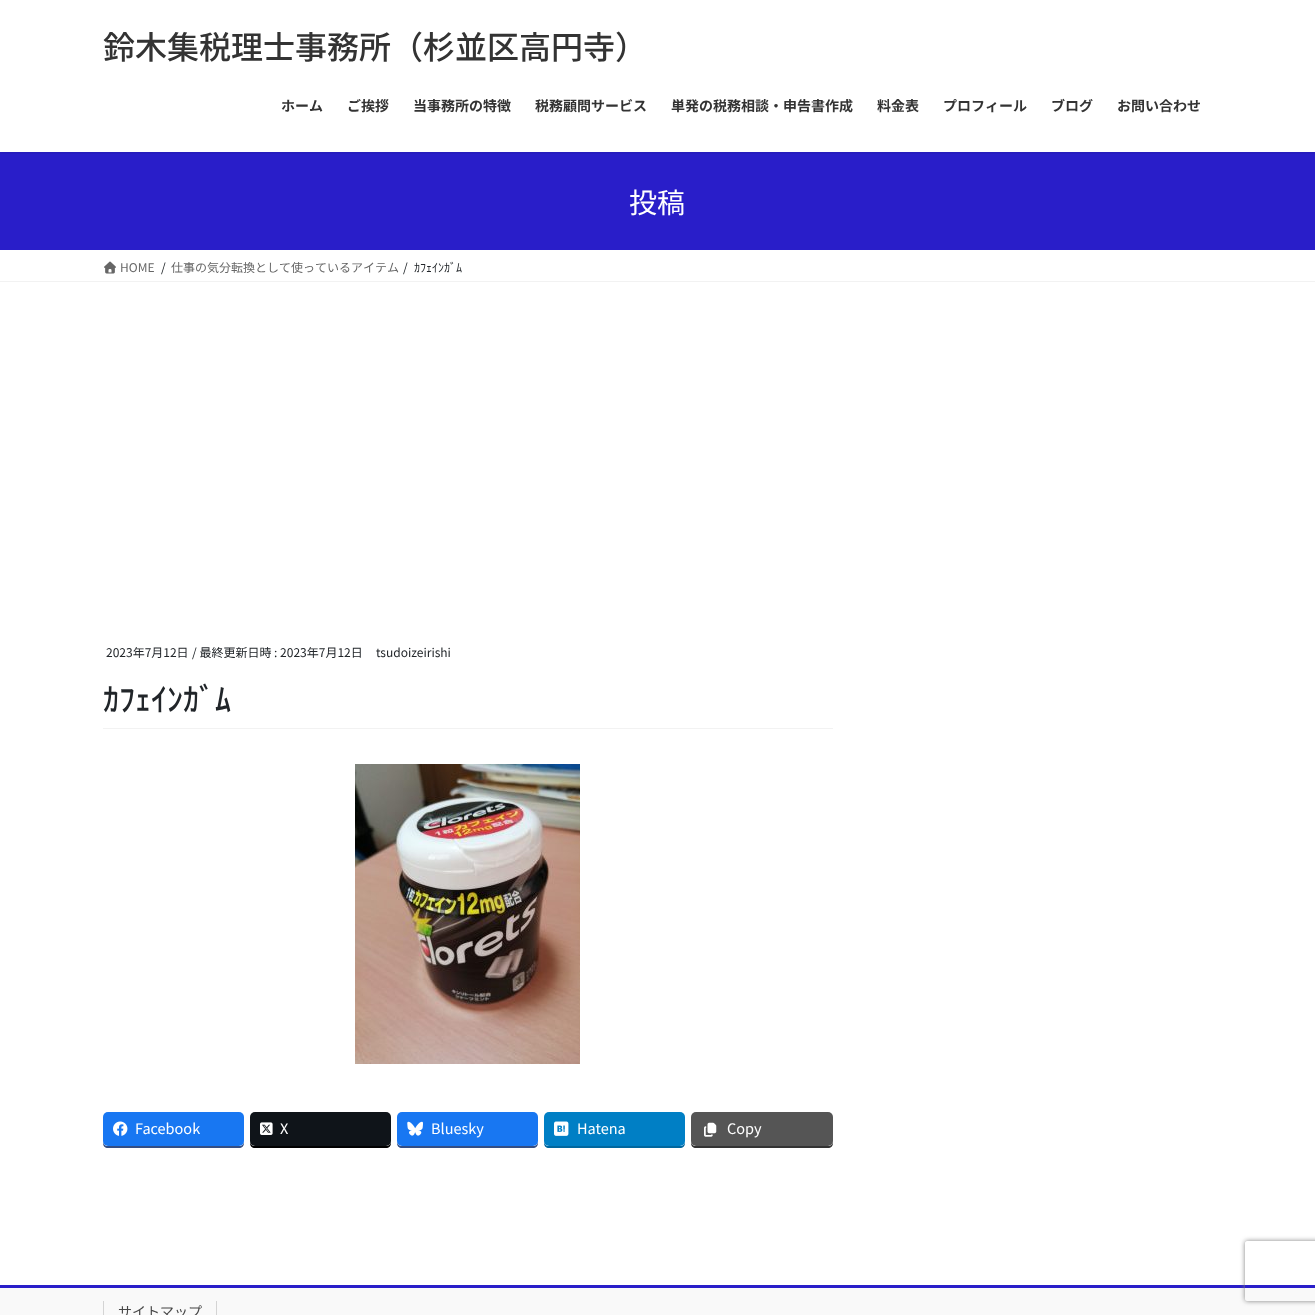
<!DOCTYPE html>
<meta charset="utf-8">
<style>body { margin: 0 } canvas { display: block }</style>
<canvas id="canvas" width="1315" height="1315"></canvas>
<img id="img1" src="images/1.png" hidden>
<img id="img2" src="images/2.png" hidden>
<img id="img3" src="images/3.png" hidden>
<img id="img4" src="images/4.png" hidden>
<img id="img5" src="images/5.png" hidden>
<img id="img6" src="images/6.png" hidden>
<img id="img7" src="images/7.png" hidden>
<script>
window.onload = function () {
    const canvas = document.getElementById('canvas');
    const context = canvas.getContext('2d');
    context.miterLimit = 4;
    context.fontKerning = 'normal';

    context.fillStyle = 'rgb(255, 255, 255)';
    context.fillRect(0, 0, 1315, 1315);
    context.fillStyle = 'rgb(41, 30, 201)';
    context.fillRect(0, 152, 1315, 98);
    context.save();
    context.beginPath();
    context.rect(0, 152, 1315, 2);
    context.clip();
    context.fillStyle = 'rgba(0, 0, 0, 0.1)';
    context.filter = 'blur(1.5px)';
    context.beginPath();
    context.rect(0, 1, 1315, 152);
    context.fill();
    context.filter = 'none';
    context.restore();
    context.fillStyle = 'rgb(242, 242, 242)';
    context.fillRect(0, 281, 1315, 1);
    context.drawImage(document.getElementById('img1'), 104, 261, 12, 13);
    context.fillRect(103, 728, 730, 1);
    context.drawImage(document.getElementById('img2'), 355, 764, 225, 300);
    context.fillStyle = 'rgb(52, 78, 132)';
    context.beginPath();
    context.moveTo(103, 1141);
    context.lineTo(103, 1143);
    context.bezierCurveTo(103, 1146, 105, 1148, 108, 1148);
    context.lineTo(239, 1148);
    context.bezierCurveTo(242, 1148, 244, 1146, 244, 1143);
    context.lineTo(244, 1141);
    context.bezierCurveTo(244, 1144, 242, 1146, 239, 1146);
    context.lineTo(108, 1146);
    context.bezierCurveTo(105, 1146, 103, 1144, 103, 1141);
    context.closePath();
    context.fill();
    context.fillStyle = 'rgb(24, 119, 242)';
    context.beginPath();
    context.roundRect(103, 1112, 141, 34, 5);
    context.fill();
    context.drawImage(document.getElementById('img3'), 113, 1121, 15, 15);
    context.fillStyle = 'rgb(0, 0, 0)';
    context.beginPath();
    context.moveTo(250, 1141);
    context.lineTo(250, 1143);
    context.bezierCurveTo(250, 1146, 252, 1148, 255, 1148);
    context.lineTo(386, 1148);
    context.bezierCurveTo(389, 1148, 391, 1146, 391, 1143);
    context.lineTo(391, 1141);
    context.bezierCurveTo(391, 1144, 389, 1146, 386, 1146);
    context.lineTo(255, 1146);
    context.bezierCurveTo(252, 1146, 250, 1144, 250, 1141);
    context.closePath();
    context.fill();
    context.fillStyle = 'rgb(15, 20, 25)';
    context.beginPath();
    context.roundRect(250, 1112, 141, 34, 5);
    context.fill();
    context.drawImage(document.getElementById('img4'), 260, 1122, 13, 13);
    context.fillStyle = 'rgb(52, 78, 132)';
    context.beginPath();
    context.moveTo(397, 1141);
    context.lineTo(397, 1143);
    context.bezierCurveTo(397, 1146, 399, 1148, 402, 1148);
    context.lineTo(533, 1148);
    context.bezierCurveTo(536, 1148, 538, 1146, 538, 1143);
    context.lineTo(538, 1141);
    context.bezierCurveTo(538, 1144, 536, 1146, 533, 1146);
    context.lineTo(402, 1146);
    context.bezierCurveTo(399, 1146, 397, 1144, 397, 1141);
    context.closePath();
    context.fill();
    context.fillStyle = 'rgb(24, 119, 242)';
    context.beginPath();
    context.roundRect(397, 1112, 141, 34, 5);
    context.fill();
    context.drawImage(document.getElementById('img5'), 407, 1121, 16, 15);
    context.fillStyle = 'rgb(0, 103, 159)';
    context.beginPath();
    context.moveTo(544, 1141);
    context.lineTo(544, 1143);
    context.bezierCurveTo(544, 1146, 546, 1148, 549, 1148);
    context.lineTo(680, 1148);
    context.bezierCurveTo(683, 1148, 685, 1146, 685, 1143);
    context.lineTo(685, 1141);
    context.bezierCurveTo(685, 1144, 683, 1146, 680, 1146);
    context.lineTo(549, 1146);
    context.bezierCurveTo(546, 1146, 544, 1144, 544, 1141);
    context.closePath();
    context.fill();
    context.fillStyle = 'rgb(0, 127, 197)';
    context.beginPath();
    context.roundRect(544, 1112, 141, 34, 5);
    context.fill();
    context.drawImage(document.getElementById('img6'), 554, 1121, 15, 15);
    context.fillStyle = 'rgb(51, 51, 51)';
    context.beginPath();
    context.moveTo(691, 1141);
    context.lineTo(691, 1143);
    context.bezierCurveTo(691, 1146, 693, 1148, 696, 1148);
    context.lineTo(828, 1148);
    context.bezierCurveTo(831, 1148, 833, 1146, 833, 1143);
    context.lineTo(833, 1141);
    context.bezierCurveTo(833, 1144, 831, 1146, 828, 1146);
    context.lineTo(696, 1146);
    context.bezierCurveTo(693, 1146, 691, 1144, 691, 1141);
    context.closePath();
    context.fill();
    context.fillStyle = 'rgb(85, 85, 85)';
    context.beginPath();
    context.roundRect(691, 1112, 142, 34, 5);
    context.fill();
    context.drawImage(document.getElementById('img7'), 704, 1122, 13, 15);
    context.fillStyle = 'rgb(249, 249, 249)';
    context.fillRect(0, 1288, 1315, 27);
    context.fillStyle = 'rgb(41, 30, 201)';
    context.fillRect(0, 1285, 1315, 3);
    context.fillStyle = 'rgb(212, 212, 212)';
    context.fillRect(216, 1301, 1, 14);
    context.fillRect(103, 1301, 1, 14);
    context.save();
    context.beginPath();
    context.moveTo(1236, 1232);
    context.lineTo(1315, 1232);
    context.lineTo(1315, 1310);
    context.lineTo(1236, 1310);
    context.closePath();
    context.moveTo(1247, 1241);
    context.lineTo(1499, 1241);
    context.bezierCurveTo(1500, 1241, 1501, 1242, 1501, 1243);
    context.lineTo(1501, 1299);
    context.bezierCurveTo(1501, 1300, 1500, 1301, 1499, 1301);
    context.lineTo(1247, 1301);
    context.bezierCurveTo(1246, 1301, 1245, 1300, 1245, 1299);
    context.lineTo(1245, 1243);
    context.bezierCurveTo(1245, 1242, 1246, 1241, 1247, 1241);
    context.closePath();
    context.clip('evenodd');
    context.fillStyle = 'rgb(128, 128, 128)';
    context.filter = 'blur(2.5px)';
    context.beginPath();
    context.roundRect(1245, 1241, 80, 60, 2);
    context.fill();
    context.filter = 'none';
    context.restore();
    context.font = '500 32px Noto Sans JP';
    context.fillStyle = 'rgb(51, 51, 51)';
    context.fillText('鈴木集税理士事務所（杉並区高円寺）', 103, 59);
    context.font = 'bold 14px Noto Sans JP';
    context.fillText('ホーム', 281, 111);
    context.fillText('ご挨拶', 347, 111);
    context.fillText('当事務所の特徴', 413, 111);
    context.fillText('税務顧問サービス', 535, 111);
    context.fillText('単発の税務相談・申告書作成', 671, 111);
    context.fillText('料金表', 877, 111);
    context.fillText('プロフィール', 943, 111);
    context.fillText('ブログ', 1051, 111);
    context.fillText('お問い合わせ', 1117, 111);
    context.font = '28px Noto Sans JP';
    context.fillStyle = 'rgb(255, 255, 255)';
    context.fillText('投稿', 629, 213);
    context.font = '12px Noto Sans JP';
    context.fillStyle = 'rgb(102, 102, 102)';
    context.fillText('HOME', 120, 272);
    context.fillStyle = 'rgb(33, 37, 41)';
    context.fillText('/', 161, 272);
    context.fillStyle = 'rgb(102, 102, 102)';
    context.fillText('仕事の気分転換として使っているアイテム', 171, 272);
    context.fillStyle = 'rgb(33, 37, 41)';
    context.fillText('/', 403, 272);
    context.fillText('ｶﾌｪｲﾝｶﾞﾑ', 414, 272);
    context.fillText('2023年7月12日', 106, 657);
    context.fillText('/ 最終更新日時 : 2023年7月12日', 192, 657);
    context.fillText('tsudoizeirishi', 376, 657);
    context.font = '500 32px Noto Sans JP';
    context.fillText('ｶﾌｪｲﾝｶﾞﾑ', 103, 711);
    context.font = '14.5px Noto Sans JP';
    context.fillStyle = 'rgb(255, 255, 255)';
    context.fillText('Facebook', 135, 1134);
    context.fillText('X', 280, 1134);
    context.fillText('Bluesky', 431, 1134);
    context.fillText('Hatena', 577, 1134);
    context.fillText('Copy', 727, 1134);
    context.font = '14px Noto Sans JP';
    context.fillStyle = 'rgb(70, 70, 70)';
    context.fillText('サイトマップ', 118, 1317);
};
</script>
